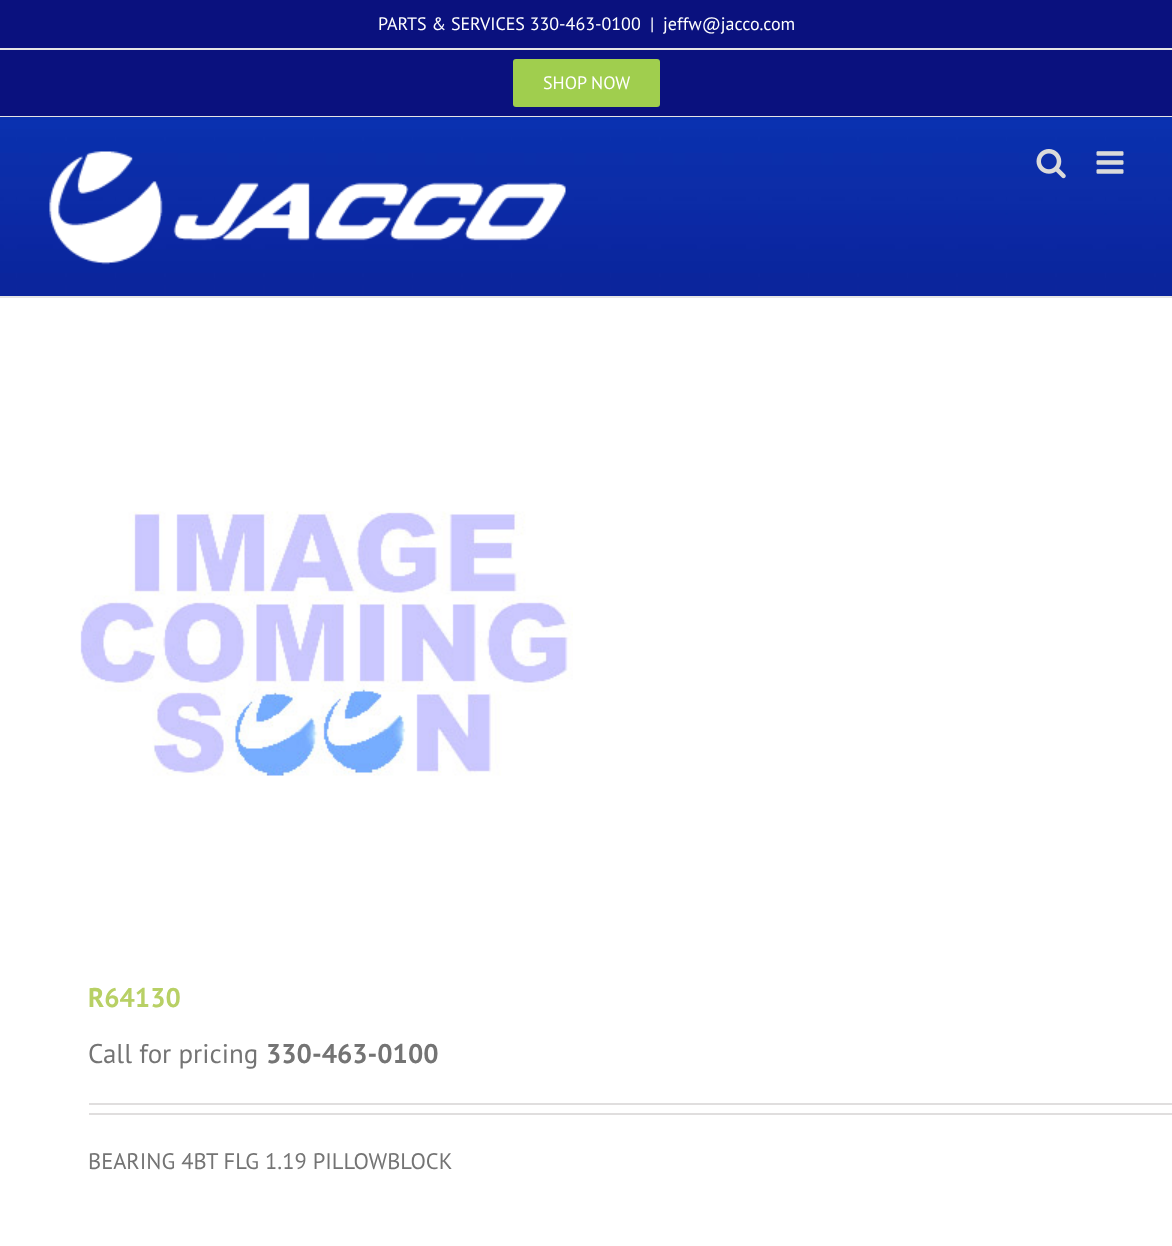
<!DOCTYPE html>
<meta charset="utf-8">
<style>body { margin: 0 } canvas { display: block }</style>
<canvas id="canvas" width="1172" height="1246"></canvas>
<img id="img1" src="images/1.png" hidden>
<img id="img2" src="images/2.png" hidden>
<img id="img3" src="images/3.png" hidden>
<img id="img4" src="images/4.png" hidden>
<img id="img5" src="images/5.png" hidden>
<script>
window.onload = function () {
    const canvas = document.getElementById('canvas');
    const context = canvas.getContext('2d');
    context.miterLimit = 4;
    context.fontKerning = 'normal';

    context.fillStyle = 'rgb(255, 255, 255)';
    context.fillRect(0, 0, 1172, 1246);
    context.fillStyle = 'rgb(10, 17, 126)';
    context.fillRect(0, 0, 1172, 116);
    context.fillStyle = 'rgb(229, 229, 229)';
    context.fillRect(0, 116, 1172, 1);
    context.fillRect(0, 48, 1172, 2);
    context.fillStyle = 'rgb(160, 206, 78)';
    context.beginPath();
    context.roundRect(513, 59, 147, 48, 3);
    context.fill();
    context.drawImage(document.getElementById('img1'), 0, 117, 1172, 179);
    context.fillStyle = 'rgb(229, 229, 229)';
    context.fillRect(0, 296, 1172, 2);
    context.drawImage(document.getElementById('img2'), 49, 151, 517, 114);
    context.drawImage(document.getElementById('img3'), 1036, 149, 30, 30);
    context.drawImage(document.getElementById('img4'), 1096, 151, 28, 23);
    context.drawImage(document.getElementById('img5'), 80, 511, 493, 265);
    context.fillStyle = 'rgb(224, 222, 222)';
    context.fillRect(89, 1103, 1083, 2);
    context.fillRect(89, 1113, 1083, 2);
    context.font = '18px PT Sans';
    context.fillStyle = 'rgb(255, 255, 255)';
    context.fillText('PARTS & SERVICES 330-463-0100', 378, 30);
    context.fillText('|', 650, 30);
    context.fillText('jeffw@jacco.com', 663, 30);
    context.fillText('SHOP NOW', 543, 89);
    context.font = 'bold 27px PT Sans';
    context.fillStyle = 'rgb(184, 208, 101)';
    context.fillText('R64130', 88, 1007);
    context.font = '27px PT Sans';
    context.fillStyle = 'rgb(116, 116, 116)';
    context.fillText('Call for pricing', 88, 1063);
    context.font = 'bold 27px PT Sans';
    context.fillText('330-463-0100', 266, 1063);
    context.font = '22.5px PT Sans';
    context.fillText('BEARING 4BT FLG 1.19 PILLOWBLOCK', 88, 1169);
};
</script>
